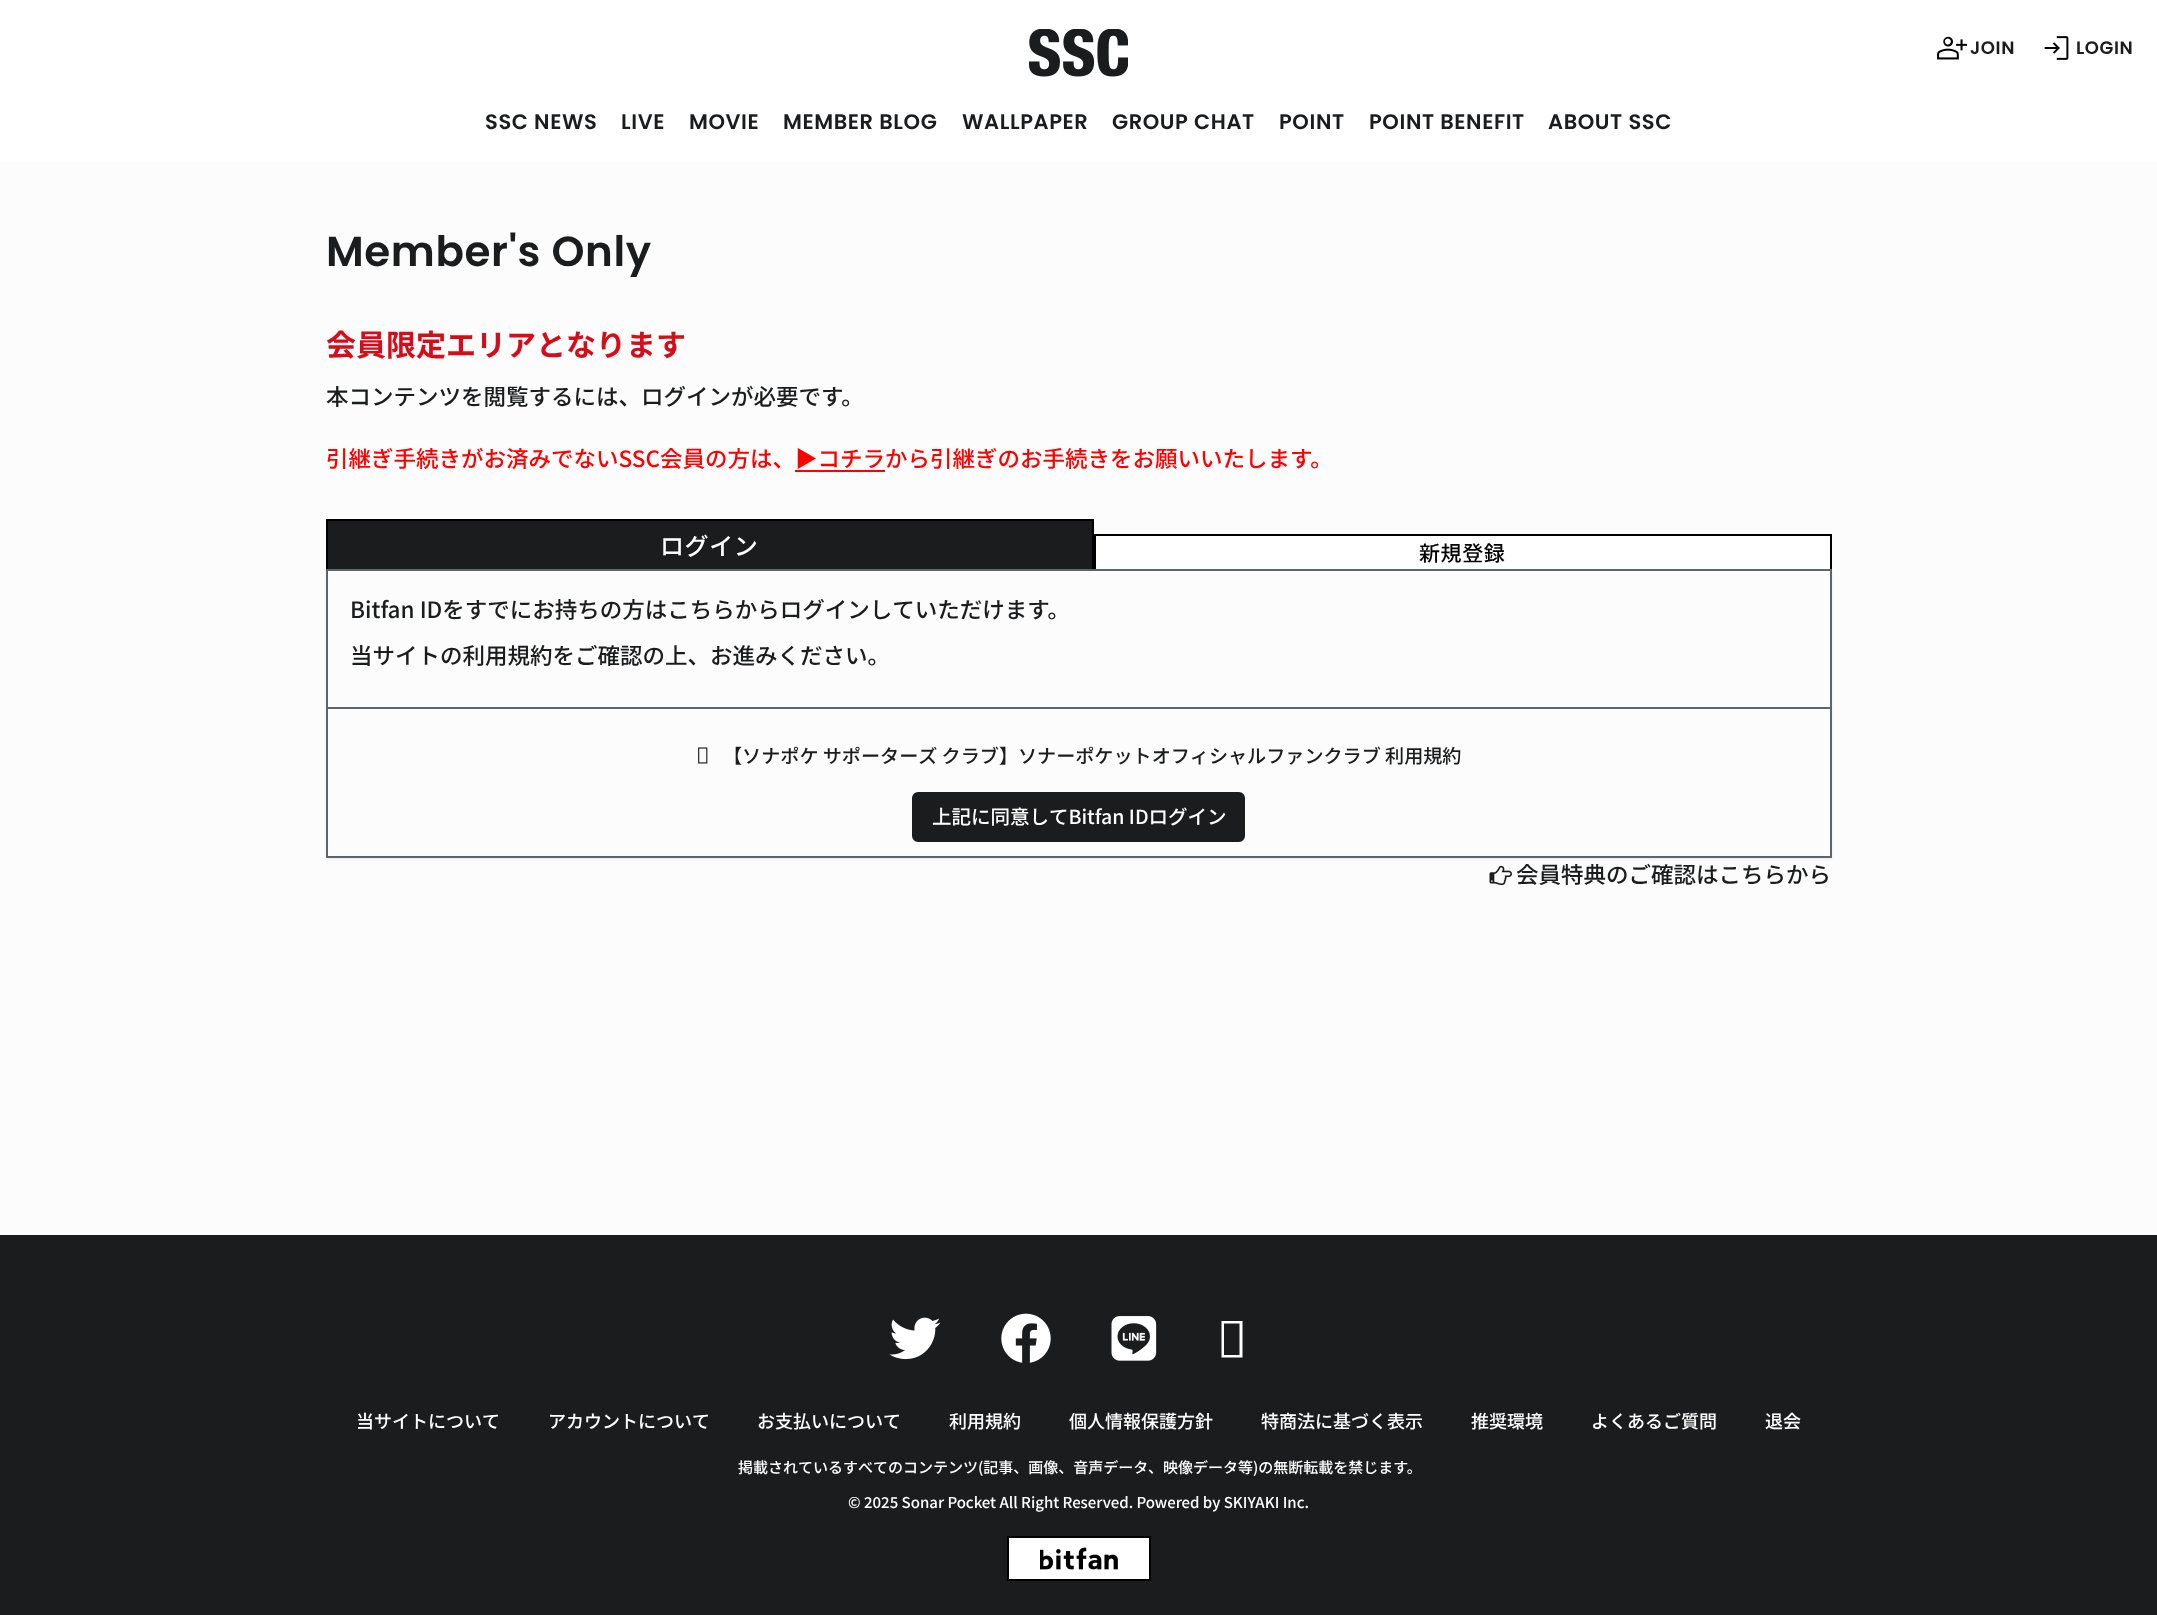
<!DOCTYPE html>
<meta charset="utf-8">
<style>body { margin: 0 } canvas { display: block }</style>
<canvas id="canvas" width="2157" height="1615"></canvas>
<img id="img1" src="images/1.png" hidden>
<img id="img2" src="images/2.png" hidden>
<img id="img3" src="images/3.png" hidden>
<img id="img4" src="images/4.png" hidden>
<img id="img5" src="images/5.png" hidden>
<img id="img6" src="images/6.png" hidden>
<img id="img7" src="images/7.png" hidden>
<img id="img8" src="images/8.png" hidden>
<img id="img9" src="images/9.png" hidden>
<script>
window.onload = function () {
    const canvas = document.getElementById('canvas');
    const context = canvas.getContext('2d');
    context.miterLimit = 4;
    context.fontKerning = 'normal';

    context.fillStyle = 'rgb(252, 252, 252)';
    context.fillRect(0, 0, 2157, 1615);
    context.fillStyle = 'rgb(255, 255, 255)';
    context.fillRect(0, 0, 2157, 162);
    context.drawImage(document.getElementById('img1'), 1029, 29, 99, 48);
    context.drawImage(document.getElementById('img2'), 1937, 36, 30, 24);
    context.drawImage(document.getElementById('img3'), 2044, 36, 25, 24);
    context.fillStyle = 'rgb(255, 0, 0)';
    context.fillRect(795, 470, 90, 2);
    context.fillStyle = 'rgba(0, 0, 0, 0.05)';
    context.filter = 'blur(1px)';
    context.beginPath();
    context.rect(326, 570, 1506, 290);
    context.fill();
    context.filter = 'none';
    context.fillStyle = 'rgb(26, 28, 29)';
    context.fillRect(328, 521, 764, 48);
    context.fillStyle = 'rgb(0, 0, 0)';
    context.fillRect(326, 519, 768, 2);
    context.fillRect(1092, 519, 2, 50);
    context.fillRect(326, 519, 2, 50);
    context.fillStyle = 'rgb(255, 255, 255)';
    context.fillRect(1096, 536, 734, 33);
    context.fillStyle = 'rgb(0, 0, 0)';
    context.fillRect(1094, 534, 738, 2);
    context.fillRect(1830, 534, 2, 35);
    context.fillRect(1094, 534, 2, 35);
    context.fillStyle = 'rgb(252, 252, 252)';
    context.beginPath();
    context.rect(327, 570, 1504, 287);
    context.fill();
    context.strokeStyle = 'rgb(94, 101, 105)';
    context.lineWidth = 2;
    context.stroke();
    context.fillStyle = 'rgb(94, 101, 105)';
    context.fillRect(327, 707, 1503, 2);
    context.drawImage(document.getElementById('img4'), 698, 747, 10, 17);
    context.fillStyle = 'rgb(26, 28, 29)';
    context.beginPath();
    context.roundRect(913, 793, 331, 48, 5);
    context.fill();
    context.strokeStyle = 'rgb(26, 28, 29)';
    context.stroke();
    context.drawImage(document.getElementById('img5'), 1489, 865, 23, 21);
    context.fillRect(0, 1235, 2157, 380);
    context.drawImage(document.getElementById('img6'), 889, 1317, 52, 43);
    context.drawImage(document.getElementById('img7'), 1001, 1313, 50, 50);
    context.drawImage(document.getElementById('img8'), 1111, 1316, 46, 45);
    context.fillStyle = 'rgb(255, 255, 255)';
    context.beginPath();
    context.moveTo(1221.5, 1357.5);
    context.lineTo(1221.5, 1321);
    context.lineTo(1242.5, 1321);
    context.lineTo(1242.5, 1357.5);
    context.closePath();
    context.moveTo(1224, 1355);
    context.lineTo(1239.5, 1355);
    context.lineTo(1239.5, 1323.5);
    context.lineTo(1224, 1323.5);
    context.closePath();
    context.fill();
    context.beginPath();
    context.rect(1008, 1537, 142, 43);
    context.fill();
    context.strokeStyle = 'rgb(0, 0, 0)';
    context.stroke();
    context.drawImage(document.getElementById('img9'), 1040, 1547, 78, 23);
    context.letterSpacing = '0.6px';
    context.font = '600 18px Poppins';
    context.fillStyle = 'rgb(26, 28, 29)';
    context.fillText('JOIN', 1970, 54);
    context.fillText('LOGIN', 2076, 54);
    context.font = '600 21px Poppins';
    context.fillText('SSC NEWS', 485, 129);
    context.fillText('LIVE', 621, 129);
    context.fillText('MOVIE', 689, 129);
    context.fillText('MEMBER BLOG', 783, 129);
    context.fillText('WALLPAPER', 962, 129);
    context.fillText('GROUP CHAT', 1112, 129);
    context.fillText('POINT', 1279, 129);
    context.fillText('POINT BENEFIT', 1369, 129);
    context.fillText('ABOUT SSC', 1548, 129);
    context.font = '600 42px Poppins';
    context.fillText('Member\'s Only', 326, 266);
    context.letterSpacing = '0px';
    context.font = 'bold 30px Noto Sans JP';
    context.fillStyle = 'rgb(215, 12, 24)';
    context.fillText('会員限定エリアとなります', 326, 356);
    context.font = '500 22.5px Noto Sans JP';
    context.fillStyle = 'rgb(26, 28, 29)';
    context.fillText('本コンテンツを閲覧するには、ログインが必要です。', 326, 405);
    context.fillStyle = 'rgb(255, 0, 0)';
    context.fillText('引継ぎ手続きがお済みでないSSC会員の方は、▶︎コチラから引継ぎのお手続きをお願いいたします。', 326, 467);
    context.letterSpacing = '0.6px';
    context.font = '500 24px Noto Sans JP';
    context.fillStyle = 'rgb(255, 255, 255)';
    context.fillText('ログイン', 660, 555);
    context.font = '500 21px Noto Sans JP';
    context.fillStyle = 'rgb(0, 0, 0)';
    context.fillText('新規登録', 1419, 561);
    context.letterSpacing = '0px';
    context.font = '500 22.5px Noto Sans JP';
    context.fillStyle = 'rgb(26, 28, 29)';
    context.fillText('Bitfan IDをすでにお持ちの方はこちらからログインしていただけます。', 350, 618);
    context.fillText('当サイトの利用規約をご確認の上、お進みください。', 350, 664);
    context.font = '500 19.1px Noto Sans JP';
    context.fillText('【ソナポケ サポーターズ クラブ】ソナーポケットオフィシャルファンクラブ 利用規約', 723, 763);
    context.font = '500 19.5px Noto Sans JP';
    context.fillStyle = 'rgb(255, 255, 255)';
    context.fillText('上記に同意してBitfan IDログイン', 932, 824);
    context.font = '500 22.5px Noto Sans JP';
    context.fillStyle = 'rgb(26, 28, 29)';
    context.fillText('会員特典のご確認はこちらから', 1516, 883);
    context.font = '500 18px Noto Sans JP';
    context.fillStyle = 'rgb(255, 255, 255)';
    context.fillText('当サイトについて', 356, 1428);
    context.fillText('アカウントについて', 548, 1428);
    context.fillText('お支払いについて', 757, 1428);
    context.fillText('利用規約', 949, 1428);
    context.fillText('個人情報保護方針', 1069, 1428);
    context.fillText('特商法に基づく表示', 1261, 1428);
    context.fillText('推奨環境', 1471, 1428);
    context.fillText('よくあるご質問', 1591, 1428);
    context.fillText('退会', 1765, 1428);
    context.font = '500 15px Noto Sans JP';
    context.fillText('掲載されているすべてのコンテンツ(記事、画像、音声データ、映像データ等)の無断転載を禁じます。', 738, 1473);
    context.fillText('© 2025 Sonar Pocket All Right Reserved. Powered by SKIYAKI Inc.', 848, 1508);
};
</script>
